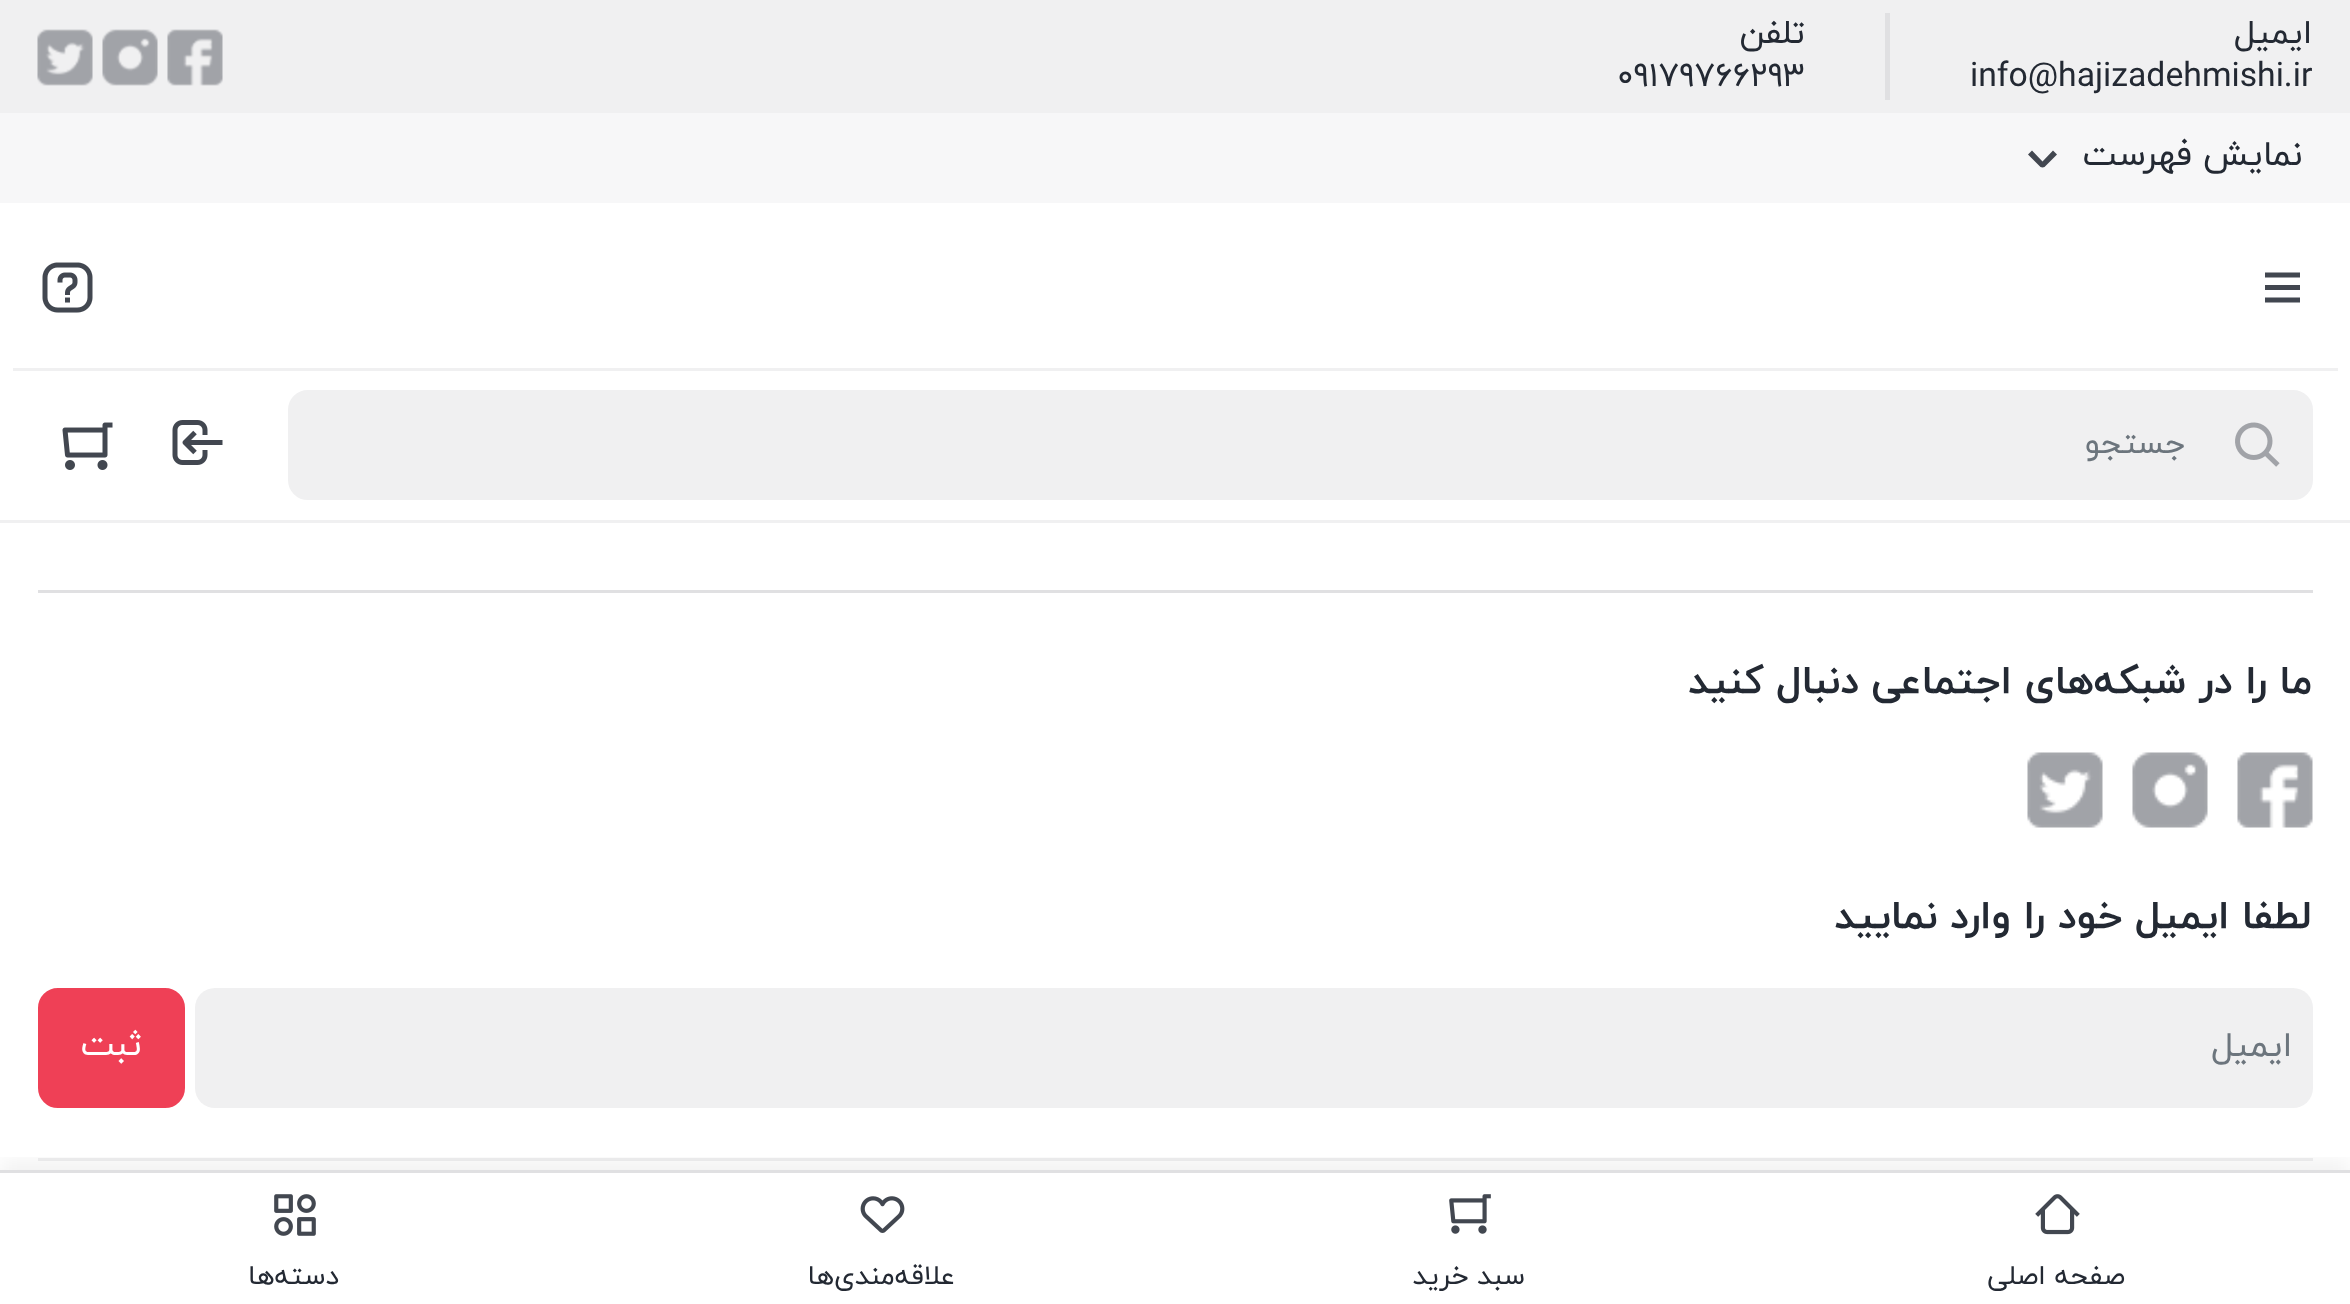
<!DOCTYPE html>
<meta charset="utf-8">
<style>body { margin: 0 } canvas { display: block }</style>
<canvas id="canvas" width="2350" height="1304"></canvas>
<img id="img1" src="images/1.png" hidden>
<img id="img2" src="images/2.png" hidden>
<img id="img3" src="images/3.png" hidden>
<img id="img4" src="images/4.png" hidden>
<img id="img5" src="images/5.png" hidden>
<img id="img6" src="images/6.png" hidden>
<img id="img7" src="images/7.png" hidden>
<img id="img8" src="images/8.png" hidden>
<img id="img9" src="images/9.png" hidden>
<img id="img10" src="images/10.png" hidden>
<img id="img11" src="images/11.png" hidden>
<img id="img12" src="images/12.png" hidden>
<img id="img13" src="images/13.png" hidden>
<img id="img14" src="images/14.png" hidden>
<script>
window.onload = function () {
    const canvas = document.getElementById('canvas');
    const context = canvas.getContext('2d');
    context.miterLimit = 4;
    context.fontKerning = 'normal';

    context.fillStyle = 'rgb(255, 255, 255)';
    context.fillRect(0, 0, 2350, 1304);
    context.fillStyle = 'rgb(240, 240, 241)';
    context.fillRect(0, 520, 2350, 3);
    context.fillRect(0, 0, 2350, 113);
    context.fillStyle = 'rgb(224, 224, 226)';
    context.fillRect(1885, 13, 5, 87);
    context.drawImage(document.getElementById('img1'), 167, 29, 56, 57);
    context.drawImage(document.getElementById('img2'), 102, 29, 56, 57);
    context.drawImage(document.getElementById('img3'), 37, 29, 56, 57);
    context.fillStyle = 'rgb(247, 247, 248)';
    context.fillRect(0, 113, 2350, 90);
    context.fillStyle = 'rgb(66, 71, 80)';
    context.beginPath();
    context.moveTo(2032, 150.5);
    context.lineTo(2028, 154.5);
    context.lineTo(2040.5, 167);
    context.bezierCurveTo(2041.5, 167.5, 2043.5, 167.5, 2044.5, 167);
    context.lineTo(2057, 154.5);
    context.lineTo(2053, 150.5);
    context.lineTo(2042.5, 161.5);
    context.closePath();
    context.fill();
    context.fillStyle = 'rgb(240, 240, 241)';
    context.fillRect(13, 368, 2325, 3);
    context.fillStyle = 'rgb(66, 71, 80)';
    context.beginPath();
    context.moveTo(2300, 277.5);
    context.lineTo(2300, 272.5);
    context.lineTo(2265, 272.5);
    context.lineTo(2265, 277.5);
    context.closePath();
    context.moveTo(2300, 285);
    context.lineTo(2300, 290);
    context.lineTo(2265, 290);
    context.lineTo(2265, 285);
    context.closePath();
    context.moveTo(2300, 297.5);
    context.lineTo(2300, 302.5);
    context.lineTo(2265, 302.5);
    context.lineTo(2265, 297.5);
    context.closePath();
    context.fill('evenodd');
    context.drawImage(document.getElementById('img4'), 42, 262, 51, 51);
    context.fillStyle = 'rgb(240, 240, 241)';
    context.beginPath();
    context.roundRect(289.5, 391.5, 2022, 107, 18.5);
    context.fill();
    context.strokeStyle = 'rgb(240, 240, 241)';
    context.lineWidth = 3;
    context.stroke();
    context.drawImage(document.getElementById('img5'), 2235, 422, 45, 45);
    context.drawImage(document.getElementById('img6'), 172, 420, 51, 45);
    context.drawImage(document.getElementById('img7'), 62, 422, 51, 48);
    context.fillStyle = 'rgb(224, 224, 226)';
    context.fillRect(38, 590, 2275, 3);
    context.drawImage(document.getElementById('img8'), 2237, 752, 76, 76);
    context.drawImage(document.getElementById('img9'), 2132, 752, 76, 76);
    context.drawImage(document.getElementById('img10'), 2027, 752, 76, 76);
    context.fillStyle = 'rgb(240, 240, 241)';
    context.beginPath();
    context.roundRect(195, 988, 2118, 120, 20);
    context.fill();
    context.fillStyle = 'rgb(239, 64, 86)';
    context.beginPath();
    context.roundRect(39.5, 989.5, 144, 117, 18.5);
    context.fill();
    context.strokeStyle = 'rgb(239, 64, 86)';
    context.stroke();
    context.fillStyle = 'rgb(240, 240, 241)';
    context.fillRect(38, 1158, 2275, 3);
    context.save();
    context.beginPath();
    context.rect(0, 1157, 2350, 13);
    context.clip();
    context.fillStyle = 'rgba(0, 0, 0, 0.05)';
    context.filter = 'blur(10px)';
    context.beginPath();
    context.rect(0, 1160, 2350, 135);
    context.fill();
    context.filter = 'none';
    context.restore();
    context.fillStyle = 'rgb(224, 224, 226)';
    context.fillRect(0, 1170, 2350, 3);
    context.drawImage(document.getElementById('img11'), 2035, 1194, 45, 41);
    context.drawImage(document.getElementById('img12'), 1449, 1194, 42, 40);
    context.drawImage(document.getElementById('img13'), 860, 1196, 45, 37);
    context.drawImage(document.getElementById('img14'), 274, 1194, 42, 42);
    context.direction = 'rtl';
    context.font = '33.75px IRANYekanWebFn';
    context.fillStyle = 'rgb(35, 41, 51)';
    context.fillText('ایمیل', 2312, 43);
    context.direction = 'ltr';
    context.fillText('info@hajizadehmishi.ir', 1970, 86);
    context.direction = 'rtl';
    context.fillText('تلفن', 1805, 43);
    context.direction = 'ltr';
    context.fillText('09179766293', 1617, 86);
    context.direction = 'rtl';
    context.font = '35px IRANYekanWebFn';
    context.fillText('نمایش فهرست', 2302, 165);
    context.font = '32.5px IRANYekanWebFn';
    context.fillStyle = 'rgb(108, 117, 125)';
    context.fillText('جستجو', 2185, 453);
    context.font = 'bold 40px IRANYekanWebFn';
    context.fillStyle = 'rgb(35, 41, 51)';
    context.fillText('ما را در شبکه‌های اجتماعی دنبال کنید', 2312, 693);
    context.fillText('لطفا ایمیل خود را وارد نمایید', 2312, 928);
    context.font = '35px IRANYekanWebFn';
    context.fillStyle = 'rgb(108, 117, 125)';
    context.fillText('ایمیل', 2292, 1056);
    context.fillStyle = 'rgb(255, 255, 255)';
    context.fillText('ثبت', 142, 1055);
    context.font = '27.5px IRANYekanWebFn';
    context.fillStyle = 'rgb(35, 41, 51)';
    context.fillText('صفحه اصلی', 2125, 1284);
    context.fillText('سبد خرید', 1525, 1284);
    context.fillText('علاقه‌مندی‌ها', 955, 1284);
    context.fillText('دسته‌ها', 339, 1284);
};
</script>
